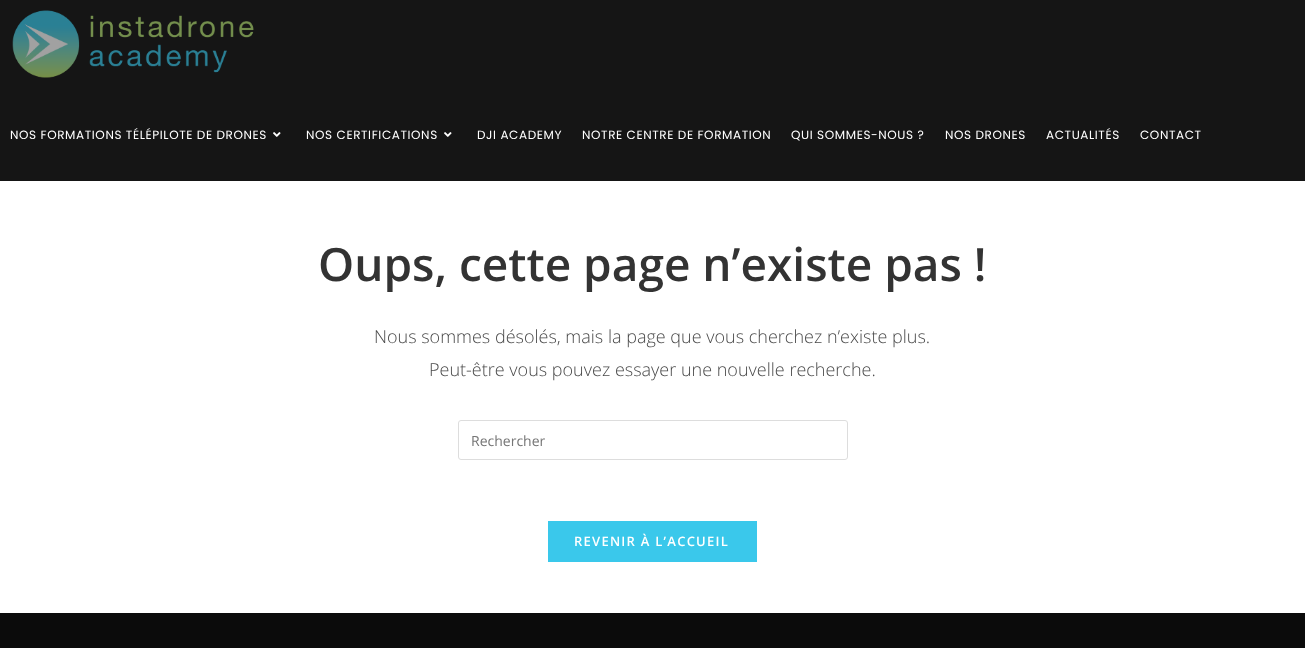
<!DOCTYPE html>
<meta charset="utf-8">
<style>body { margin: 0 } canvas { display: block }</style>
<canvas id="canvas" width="1305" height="648"></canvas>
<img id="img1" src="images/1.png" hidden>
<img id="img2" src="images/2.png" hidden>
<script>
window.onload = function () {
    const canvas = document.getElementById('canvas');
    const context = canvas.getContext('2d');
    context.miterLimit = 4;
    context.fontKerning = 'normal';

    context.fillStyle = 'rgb(255, 255, 255)';
    context.fillRect(0, 0, 1305, 648);
    context.fillStyle = 'rgb(21, 21, 21)';
    context.fillRect(0, 0, 1305, 181);
    context.drawImage(document.getElementById('img1'), 12, 10, 242, 68);
    context.drawImage(document.getElementById('img2'), 273, 132, 8, 5);
    context.drawImage(document.getElementById('img2'), 444, 132, 8, 5);
    context.beginPath();
    context.roundRect(458.5, 420.5, 389, 39, 2.5);
    context.strokeStyle = 'rgb(221, 221, 221)';
    context.stroke();
    context.fillStyle = 'rgb(58, 200, 235)';
    context.fillRect(548, 521, 209, 41);
    context.fillStyle = 'rgb(11, 11, 11)';
    context.fillRect(0, 613, 1305, 35);
    context.letterSpacing = '0.6px';
    context.font = '12px Poppins';
    context.fillStyle = 'rgb(255, 255, 255)';
    context.fillText('NOS FORMATIONS TÉLÉPILOTE DE DRONES', 10, 139);
    context.fillText('NOS CERTIFICATIONS', 306, 139);
    context.fillText('DJI ACADEMY', 477, 139);
    context.fillText('NOTRE CENTRE DE FORMATION', 582, 139);
    context.fillText('QUI SOMMES-NOUS ?', 791, 139);
    context.fillText('NOS DRONES', 945, 139);
    context.fillText('ACTUALITÉS', 1046, 139);
    context.fillText('CONTACT', 1140, 139);
    context.letterSpacing = '0px';
    context.font = '600 46px Open Sans';
    context.fillStyle = 'rgb(51, 51, 51)';
    context.fillText('Oups, cette page n’existe pas !', 318, 281);
    context.font = '300 18px Open Sans';
    context.fillStyle = 'rgb(74, 74, 74)';
    context.fillText('Nous sommes désolés, mais la page que vous cherchez n’existe plus.', 374, 343);
    context.fillText('Peut-être vous pouvez essayer une nouvelle recherche.', 429, 376);
    context.font = '14px Open Sans';
    context.fillStyle = 'rgb(117, 117, 117)';
    context.fillText('Rechercher', 471, 446);
    context.letterSpacing = '1.25px';
    context.font = '600 13px Open Sans';
    context.fillStyle = 'rgb(255, 255, 255)';
    context.fillText('REVENIR À L’ACCUEIL', 574, 546);
};
</script>
